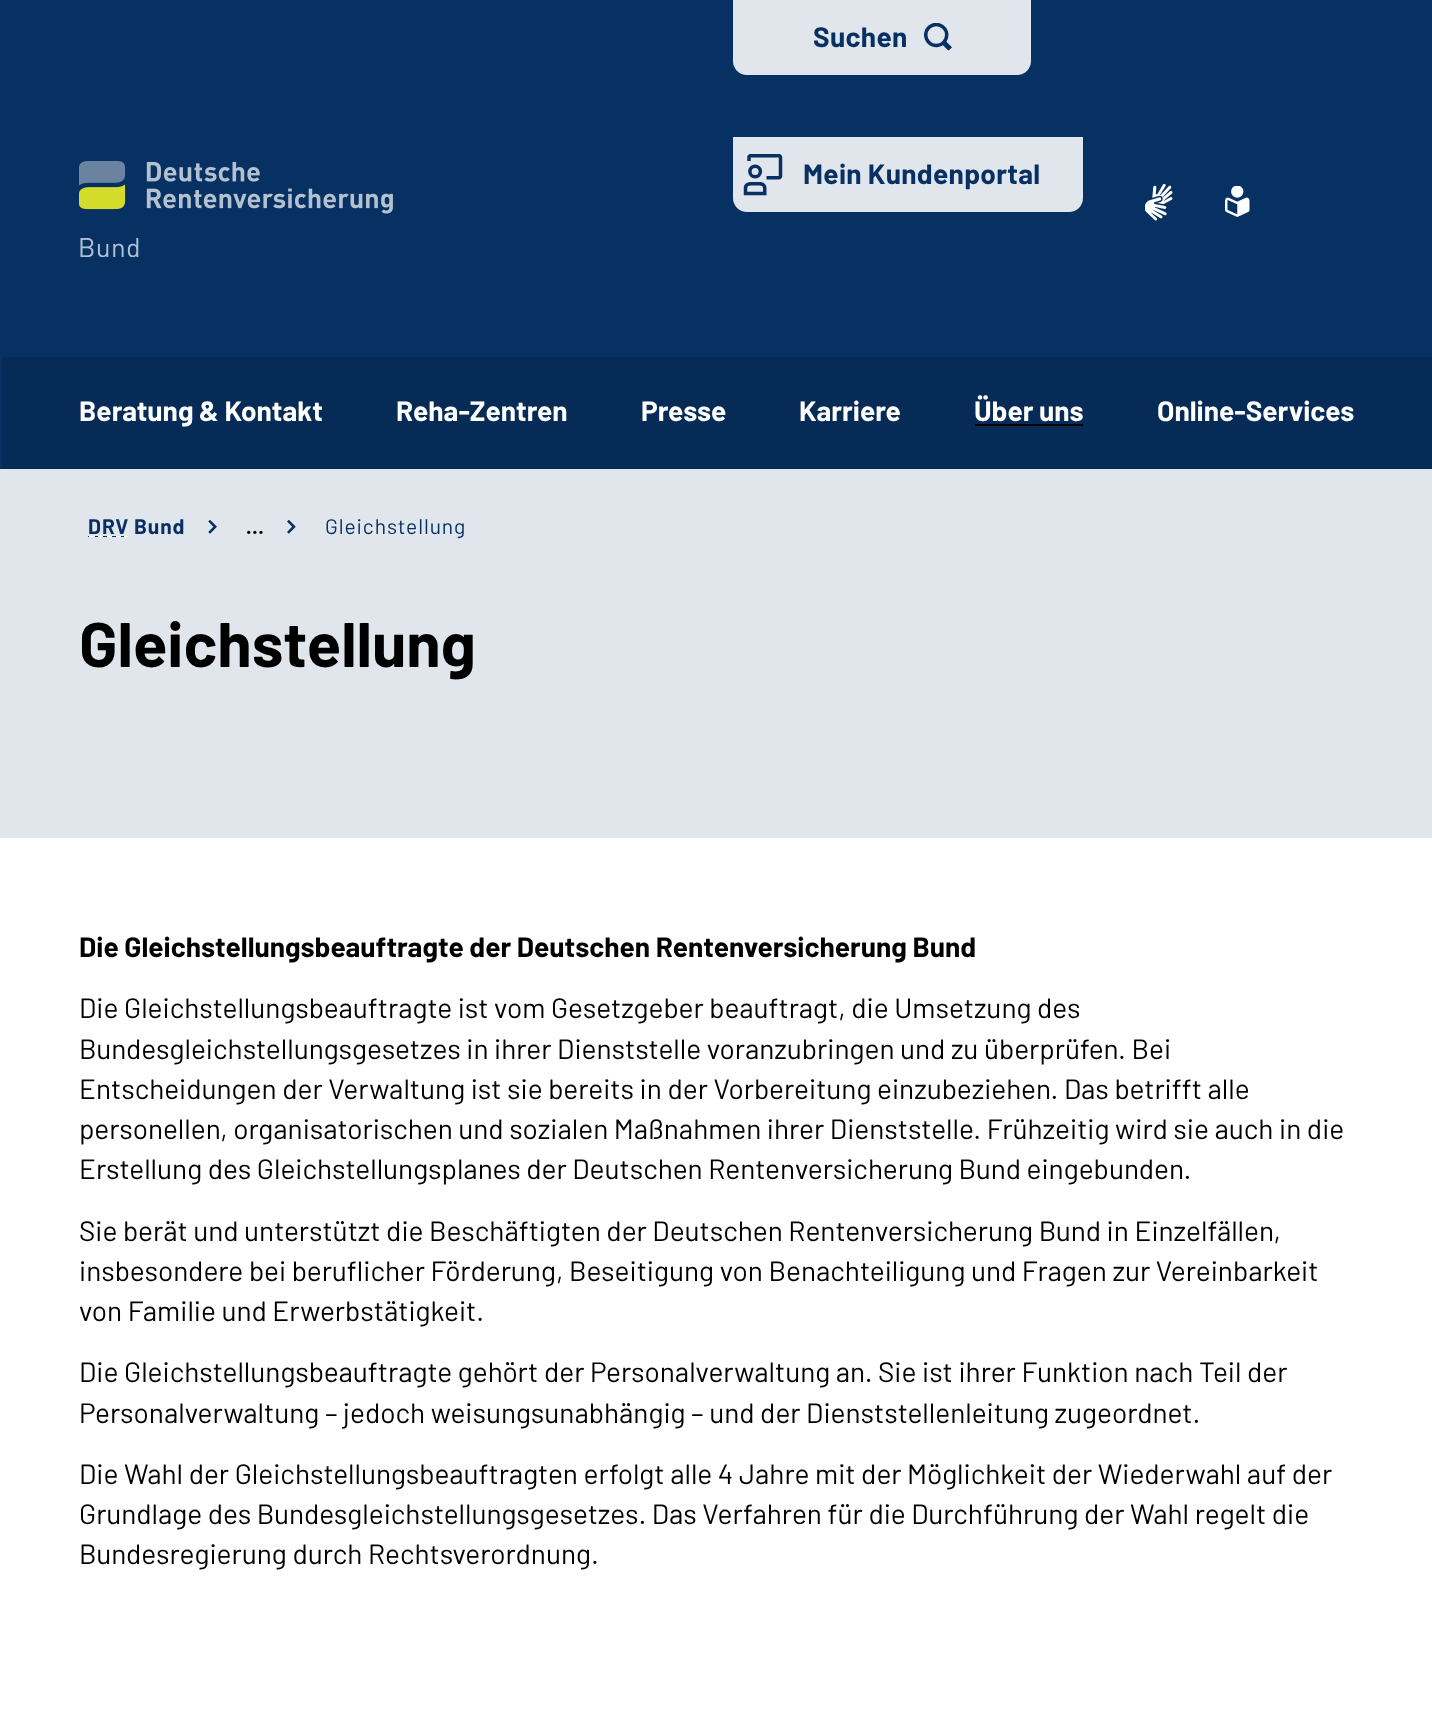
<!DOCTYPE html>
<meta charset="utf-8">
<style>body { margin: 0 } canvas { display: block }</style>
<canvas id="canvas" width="1432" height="1716"></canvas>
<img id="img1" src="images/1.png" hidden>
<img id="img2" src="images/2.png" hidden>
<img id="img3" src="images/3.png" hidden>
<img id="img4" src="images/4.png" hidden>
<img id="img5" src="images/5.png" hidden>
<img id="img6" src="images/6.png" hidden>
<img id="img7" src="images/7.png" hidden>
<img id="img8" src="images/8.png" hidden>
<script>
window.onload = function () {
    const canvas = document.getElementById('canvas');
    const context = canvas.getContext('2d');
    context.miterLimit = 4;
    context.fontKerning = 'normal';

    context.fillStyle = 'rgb(255, 255, 255)';
    context.fillRect(0, 0, 1432, 1716);
    context.fillStyle = 'rgb(8, 49, 99)';
    context.fillRect(0, 0, 1432, 469);
    context.fillStyle = 'rgb(225, 230, 236)';
    context.beginPath();
    context.roundRect(733, 0, 298, 75, [0, 0, 14, 14]);
    context.fill();
    context.drawImage(document.getElementById('img1'), 924, 23, 28, 28);
    context.beginPath();
    context.roundRect(733, 137, 350, 75, [0, 0, 14, 14]);
    context.fill();
    context.drawImage(document.getElementById('img2'), 743, 154, 40, 42);
    context.drawImage(document.getElementById('img3'), 1145, 184, 28, 37);
    context.drawImage(document.getElementById('img4'), 1225, 186, 25, 31);
    context.drawImage(document.getElementById('img5'), 79, 161, 314, 96);
    context.fillStyle = 'rgb(7, 43, 87)';
    context.fillRect(2, 357, 1430, 112);
    context.fillStyle = 'rgb(0, 0, 0)';
    context.fillRect(975, 424, 108, 2);
    context.fillStyle = 'rgb(225, 230, 236)';
    context.fillRect(0, 469, 1432, 369);
    context.drawImage(document.getElementById('img6'), 208, 520, 9, 14);
    context.drawImage(document.getElementById('img7'), 88, 536, 40, 1);
    context.drawImage(document.getElementById('img8'), 287, 520, 9, 14);
    context.letterSpacing = '0.3px';
    context.font = 'bold 28px Barlow';
    context.fillStyle = 'rgb(8, 49, 99)';
    context.fillText('Suchen', 813, 47);
    context.fillText('Mein Kundenportal', 803, 184);
    context.letterSpacing = '0px';
    context.fillStyle = 'rgb(255, 255, 255)';
    context.fillText('Beratung & Kontakt', 79, 421);
    context.fillText('Reha-Zentren', 396, 421);
    context.fillText('Presse', 641, 421);
    context.fillText('Karriere', 799, 421);
    context.fillText('Über uns', 974, 421);
    context.fillText('Online-Services', 1157, 421);
    context.letterSpacing = '0.9px';
    context.font = 'bold 21px Barlow';
    context.fillStyle = 'rgb(8, 49, 99)';
    context.fillText('DRV', 88, 534);
    context.fillText('Bund', 134, 534);
    context.letterSpacing = '0px';
    context.fillStyle = 'rgb(0, 0, 0)';
    context.fillText('…', 246, 534);
    context.letterSpacing = '0.9px';
    context.font = '21px Barlow';
    context.fillStyle = 'rgb(8, 49, 99)';
    context.fillText('Gleichstellung', 325, 534);
    context.letterSpacing = '0px';
    context.font = 'bold 63px Barlow';
    context.fillStyle = 'rgb(0, 0, 0)';
    context.fillText('Gleichstellung', 79, 667);
    context.font = 'bold 28px Barlow';
    context.fillText('Die Gleichstellungsbeauftragte der Deutschen Rentenversicherung Bund', 79, 957);
    context.font = '28px Barlow';
    context.fillText('Die Gleichstellungsbeauftragte ist vom Gesetzgeber beauftragt, die Umsetzung des', 79, 1018);
    context.fillText('Bundesgleichstellungsgesetzes in ihrer Dienststelle voranzubringen und zu überprüfen. Bei', 79, 1059);
    context.fillText('Entscheidungen der Verwaltung ist sie bereits in der Vorbereitung einzubeziehen. Das betrifft alle', 79, 1099);
    context.fillText('personellen, organisatorischen und sozialen Maßnahmen ihrer Dienststelle. Frühzeitig wird sie auch in die', 79, 1139);
    context.fillText('Erstellung des Gleichstellungsplanes der Deutschen Rentenversicherung Bund eingebunden.', 79, 1179);
    context.fillText('Sie berät und unterstützt die Beschäftigten der Deutschen Rentenversicherung Bund in Einzelfällen,', 79, 1241);
    context.fillText('insbesondere bei beruflicher Förderung, Beseitigung von Benachteiligung und Fragen zur Vereinbarkeit', 79, 1281);
    context.fillText('von Familie und Erwerbstätigkeit.', 79, 1321);
    context.fillText('Die Gleichstellungsbeauftragte gehört der Personalverwaltung an. Sie ist ihrer Funktion nach Teil der', 79, 1382);
    context.fillText('Personalverwaltung – jedoch weisungsunabhängig – und der Dienststellenleitung zugeordnet.', 79, 1423);
    context.fillText('Die Wahl der Gleichstellungsbeauftragten erfolgt alle 4 Jahre mit der Möglichkeit der Wiederwahl auf der', 79, 1484);
    context.fillText('Grundlage des Bundesgleichstellungsgesetzes. Das Verfahren für die Durchführung der Wahl regelt die', 79, 1524);
    context.fillText('Bundesregierung durch Rechtsverordnung.', 79, 1564);
};
</script>
